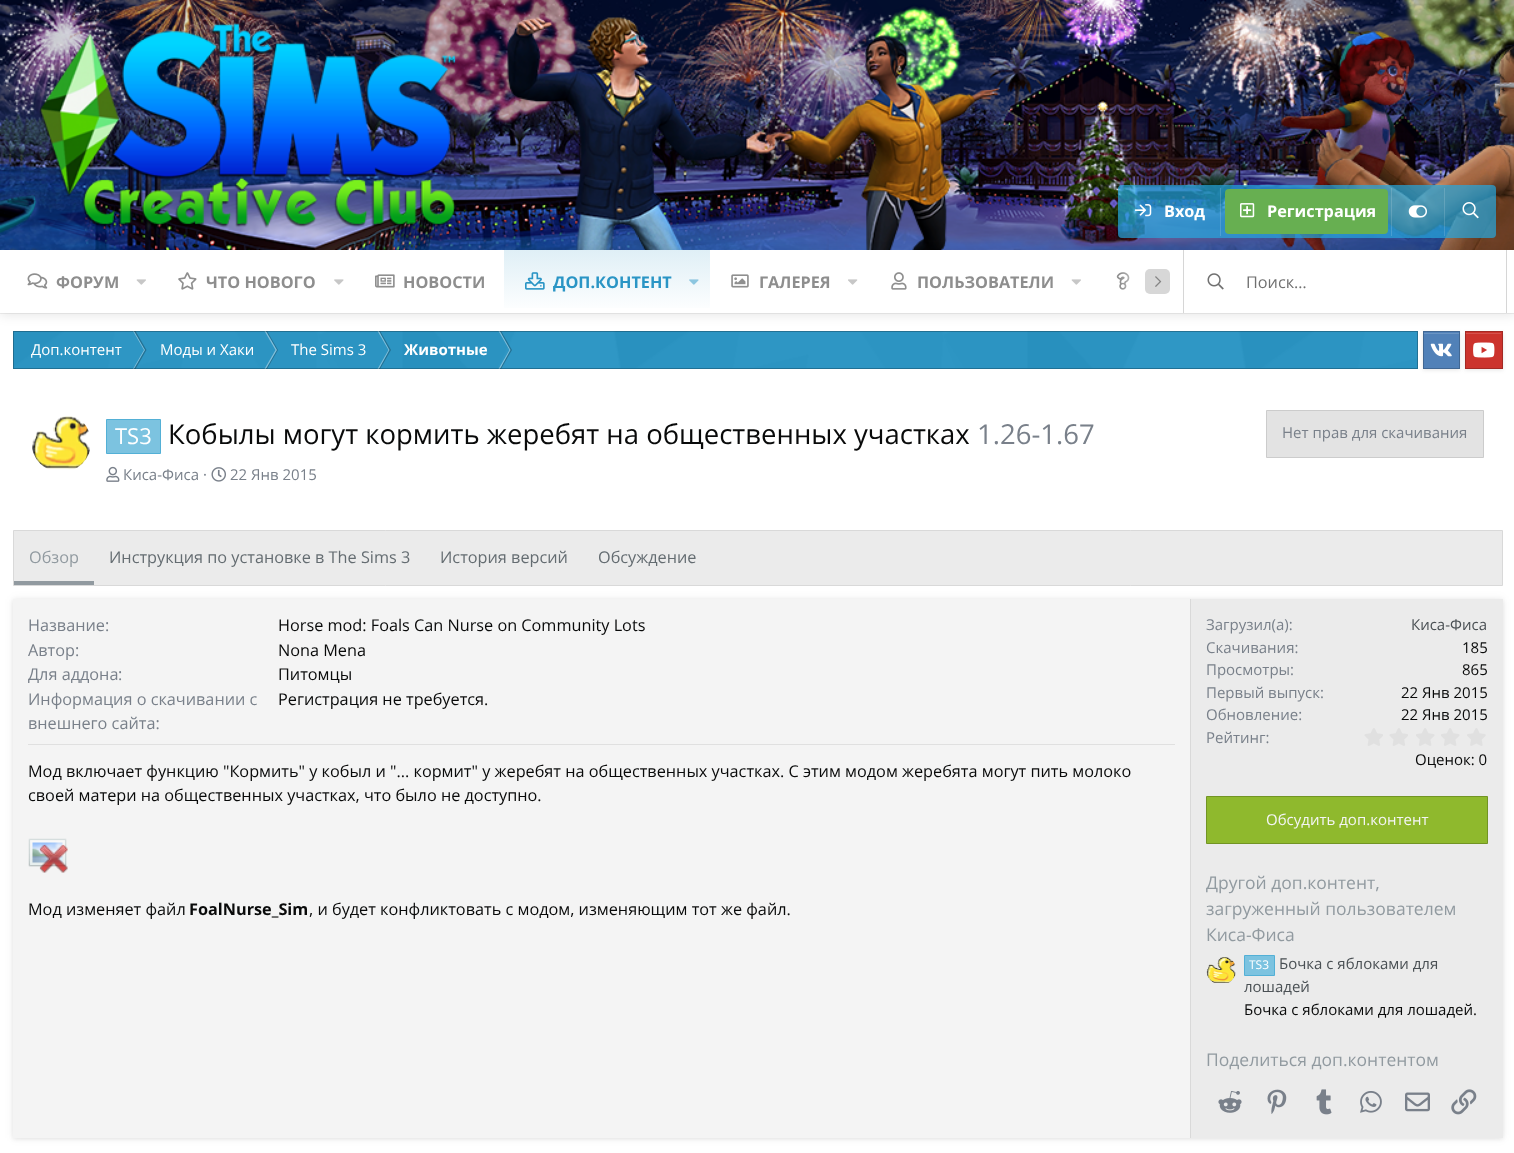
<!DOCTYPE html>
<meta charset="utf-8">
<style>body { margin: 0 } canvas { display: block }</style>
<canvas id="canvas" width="1514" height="1153"></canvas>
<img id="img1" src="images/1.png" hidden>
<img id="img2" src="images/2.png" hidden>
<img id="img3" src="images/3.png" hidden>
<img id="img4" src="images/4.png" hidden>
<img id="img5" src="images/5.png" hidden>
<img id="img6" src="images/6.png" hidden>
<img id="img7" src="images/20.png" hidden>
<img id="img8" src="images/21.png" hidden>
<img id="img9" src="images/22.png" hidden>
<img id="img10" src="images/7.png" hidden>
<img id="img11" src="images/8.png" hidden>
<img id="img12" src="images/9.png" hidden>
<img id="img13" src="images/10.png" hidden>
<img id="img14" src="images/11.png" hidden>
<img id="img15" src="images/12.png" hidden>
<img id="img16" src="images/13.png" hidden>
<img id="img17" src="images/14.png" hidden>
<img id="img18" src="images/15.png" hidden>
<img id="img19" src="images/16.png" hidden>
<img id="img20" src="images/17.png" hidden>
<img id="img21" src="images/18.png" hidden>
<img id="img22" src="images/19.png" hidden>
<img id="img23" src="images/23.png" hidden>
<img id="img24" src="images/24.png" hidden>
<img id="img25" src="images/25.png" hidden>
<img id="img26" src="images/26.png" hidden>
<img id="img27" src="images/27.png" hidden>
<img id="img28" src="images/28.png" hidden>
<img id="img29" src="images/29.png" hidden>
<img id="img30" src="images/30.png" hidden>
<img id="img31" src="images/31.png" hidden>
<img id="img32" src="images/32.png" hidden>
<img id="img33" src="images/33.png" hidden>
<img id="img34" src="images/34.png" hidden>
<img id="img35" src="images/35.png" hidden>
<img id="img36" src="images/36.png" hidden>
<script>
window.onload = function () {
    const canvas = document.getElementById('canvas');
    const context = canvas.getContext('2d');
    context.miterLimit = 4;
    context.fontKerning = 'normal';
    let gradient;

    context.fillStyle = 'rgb(255, 255, 255)';
    context.fillRect(0, 0, 1514, 1153);
    context.drawImage(document.getElementById('img1'), 0, 0, 1514, 250);
    context.drawImage(document.getElementById('img2'), 39, 23, 417, 205);
    context.fillStyle = 'rgba(37, 168, 224, 0.7)';
    context.beginPath();
    context.roundRect(1118, 185, 378, 53, 4);
    context.fill();
    context.drawImage(document.getElementById('img3'), 1135, 204, 17, 13);
    context.fillStyle = 'rgba(255, 255, 255, 0.15)';
    context.fillRect(1220, 188, 1, 48);
    context.fillStyle = 'rgb(103, 175, 81)';
    context.beginPath();
    context.roundRect(1225, 189, 163, 45, 4);
    context.fill();
    context.drawImage(document.getElementById('img4'), 1240, 203, 15, 15);
    context.fillStyle = 'rgba(255, 255, 255, 0.15)';
    context.fillRect(1391, 188, 1, 48);
    context.drawImage(document.getElementById('img5'), 1408, 205, 19, 13);
    context.fillRect(1444, 188, 1, 48);
    context.drawImage(document.getElementById('img6'), 1462, 202, 17, 17);
    context.fillStyle = 'rgb(240, 240, 240)';
    context.fillRect(0, 313, 1514, 1);
    context.fillStyle = 'rgb(42, 149, 197)';
    context.fillRect(13, 331, 1405, 38);
    context.drawImage(document.getElementById('img7'), 13, 331, 1405, 37);
    context.fillStyle = 'rgb(130, 192, 220)';
    context.beginPath();
    context.moveTo(133, 331);
    context.lineTo(134, 331);
    context.lineTo(145, 350);
    context.lineTo(144, 350);
    context.closePath();
    context.fill();
    context.fillStyle = 'rgba(0, 0, 0, 0.25)';
    context.beginPath();
    context.moveTo(134, 331);
    context.lineTo(135.5, 331);
    context.lineTo(146.5, 350);
    context.lineTo(145, 350);
    context.closePath();
    context.fill();
    context.fillStyle = 'rgba(255, 255, 255, 0.4)';
    context.beginPath();
    context.moveTo(144, 350);
    context.lineTo(145, 350);
    context.lineTo(134, 369);
    context.lineTo(133, 369);
    context.closePath();
    context.fill();
    context.fillStyle = 'rgba(0, 0, 0, 0.25)';
    context.beginPath();
    context.moveTo(145, 350);
    context.lineTo(146.5, 350);
    context.lineTo(135.5, 369);
    context.lineTo(134, 369);
    context.closePath();
    context.fill();
    context.fillStyle = 'rgb(129, 191, 219)';
    context.beginPath();
    context.moveTo(264.5, 331);
    context.lineTo(266, 331);
    context.lineTo(277, 350);
    context.lineTo(275.5, 350);
    context.closePath();
    context.fill();
    context.fillStyle = 'rgba(0, 0, 0, 0.25)';
    context.beginPath();
    context.moveTo(266, 331);
    context.lineTo(267, 331);
    context.lineTo(278, 350);
    context.lineTo(277, 350);
    context.closePath();
    context.fill();
    context.fillStyle = 'rgba(255, 255, 255, 0.4)';
    context.beginPath();
    context.moveTo(275.5, 350);
    context.lineTo(277, 350);
    context.lineTo(266, 369);
    context.lineTo(264.5, 369);
    context.closePath();
    context.fill();
    context.fillStyle = 'rgba(0, 0, 0, 0.25)';
    context.beginPath();
    context.moveTo(277, 350);
    context.lineTo(278, 350);
    context.lineTo(267, 369);
    context.lineTo(266, 369);
    context.closePath();
    context.fill();
    context.fillStyle = 'rgb(129, 191, 219)';
    context.beginPath();
    context.moveTo(377.5, 331);
    context.lineTo(379, 331);
    context.lineTo(389.5, 350);
    context.lineTo(388.5, 350);
    context.closePath();
    context.fill();
    context.fillStyle = 'rgba(0, 0, 0, 0.25)';
    context.beginPath();
    context.moveTo(379, 331);
    context.lineTo(380, 331);
    context.lineTo(391, 350);
    context.lineTo(389.5, 350);
    context.closePath();
    context.fill();
    context.fillStyle = 'rgba(255, 255, 255, 0.4)';
    context.beginPath();
    context.moveTo(388.5, 350);
    context.lineTo(389.5, 350);
    context.lineTo(379, 369);
    context.lineTo(377.5, 369);
    context.closePath();
    context.fill();
    context.fillStyle = 'rgba(0, 0, 0, 0.25)';
    context.beginPath();
    context.moveTo(389.5, 350);
    context.lineTo(391, 350);
    context.lineTo(380, 369);
    context.lineTo(379, 369);
    context.closePath();
    context.fill();
    context.fillStyle = 'rgba(255, 255, 255, 0.4)';
    context.beginPath();
    context.moveTo(498.5, 331);
    context.lineTo(500, 331);
    context.lineTo(510.5, 350);
    context.lineTo(509.5, 350);
    context.closePath();
    context.fill();
    context.fillStyle = 'rgba(0, 0, 0, 0.25)';
    context.beginPath();
    context.moveTo(500, 331);
    context.lineTo(501, 331);
    context.lineTo(512, 350);
    context.lineTo(510.5, 350);
    context.closePath();
    context.fill();
    context.fillStyle = 'rgba(255, 255, 255, 0.4)';
    context.beginPath();
    context.moveTo(509.5, 350);
    context.lineTo(510.5, 350);
    context.lineTo(500, 369);
    context.lineTo(498.5, 369);
    context.closePath();
    context.fill();
    context.fillStyle = 'rgba(0, 0, 0, 0.25)';
    context.beginPath();
    context.moveTo(510.5, 350);
    context.lineTo(512, 350);
    context.lineTo(501, 369);
    context.lineTo(500, 369);
    context.closePath();
    context.fill();
    context.strokeStyle = 'rgba(2, 3, 3, 0.25)';
    context.strokeRect(13.5, 331.5, 1404, 37);
    context.fillStyle = 'rgba(0, 0, 0, 0.1)';
    context.filter = 'blur(2px)';
    context.beginPath();
    context.rect(1423, 333, 37, 37);
    context.fill();
    context.filter = 'none';
    context.fillStyle = 'rgb(81, 129, 184)';
    context.fillRect(1424, 332, 35, 36);
    context.fillStyle = 'rgb(107, 148, 195)';
    context.fillRect(1424, 333, 35, 1);
    context.drawImage(document.getElementById('img8'), 1430, 343, 22, 14);
    context.strokeStyle = 'rgb(65, 103, 147)';
    context.strokeRect(1423.5, 331.5, 36, 37);
    context.fillStyle = 'rgba(0, 0, 0, 0.1)';
    context.filter = 'blur(2px)';
    context.beginPath();
    context.rect(1465, 333, 38, 37);
    context.fill();
    context.filter = 'none';
    context.fillStyle = 'rgb(204, 51, 45)';
    context.fillRect(1466, 332, 36, 36);
    context.fillStyle = 'rgb(212, 82, 77)';
    context.fillRect(1466, 333, 35, 1);
    context.drawImage(document.getElementById('img9'), 1473, 342, 22, 16);
    context.strokeStyle = 'rgb(163, 41, 36)';
    context.strokeRect(1465.5, 331.5, 37, 37);
    context.fillStyle = 'rgba(0, 0, 0, 0.1)';
    context.filter = 'blur(6px)';
    context.beginPath();
    context.rect(0, 253, 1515, 62);
    context.fill();
    context.filter = 'none';
    context.fillStyle = 'rgb(255, 255, 255)';
    context.fillRect(0, 250, 1514, 63);
    context.drawImage(document.getElementById('img10'), 27, 273, 21, 16);
    context.drawImage(document.getElementById('img11'), 136, 279, 10, 6);
    context.drawImage(document.getElementById('img12'), 178, 272, 19, 18);
    context.drawImage(document.getElementById('img13'), 334, 279, 10, 6);
    context.drawImage(document.getElementById('img14'), 375, 274, 20, 14);
    gradient = context.createLinearGradient(607, 250, 607, 313);
    gradient.addColorStop(0, 'rgb(223, 239, 246)');
    gradient.addColorStop(1, 'rgb(255, 255, 255)');
    context.fillStyle = gradient;
    context.fillRect(504, 250, 206, 58);
    context.drawImage(document.getElementById('img15'), 525, 272, 20, 18);
    context.drawImage(document.getElementById('img16'), 689, 279, 10, 6);
    context.drawImage(document.getElementById('img17'), 731, 274, 18, 14);
    context.drawImage(document.getElementById('img18'), 848, 279, 10, 6);
    context.drawImage(document.getElementById('img19'), 891, 272, 16, 18);
    context.drawImage(document.getElementById('img11'), 1071, 279, 10, 6);
    context.drawImage(document.getElementById('img20'), 1116, 272, 14, 18);
    gradient = context.createLinearGradient(1120, 281, 1170, 281);
    gradient.addColorStop(0, 'rgba(255, 255, 255, 0)');
    gradient.addColorStop(0.6, 'rgb(255, 255, 255)');
    context.fillStyle = gradient;
    context.fillRect(1121, 272, 9, 18);
    context.fillStyle = 'rgba(94, 94, 94, 0.25)';
    context.beginPath();
    context.roundRect(1145, 269, 25, 25, 5);
    context.fill();
    context.drawImage(document.getElementById('img21'), 1155, 276, 7, 11);
    context.fillStyle = 'rgb(214, 214, 214)';
    context.fillRect(1506, 250, 1, 63);
    context.fillRect(1183, 250, 1, 63);
    context.drawImage(document.getElementById('img22'), 1207, 273, 17, 17);
    context.drawImage(document.getElementById('img23'), 32, 416, 58, 54);
    context.fillStyle = 'rgb(124, 195, 224)';
    context.beginPath();
    context.rect(106.5, 419.5, 54, 34);
    context.fill();
    context.strokeStyle = 'rgb(83, 176, 214)';
    context.stroke();
    context.fillStyle = 'rgb(227, 227, 227)';
    context.beginPath();
    context.rect(1266.5, 410.5, 217, 47);
    context.fill();
    context.strokeStyle = 'rgb(204, 204, 204)';
    context.stroke();
    context.drawImage(document.getElementById('img24'), 106, 466, 14, 16);
    context.drawImage(document.getElementById('img25'), 211, 467, 15, 15);
    context.fillStyle = 'rgb(235, 235, 235)';
    context.beginPath();
    context.rect(13.5, 530.5, 1489, 55);
    context.fill();
    context.strokeStyle = 'rgb(217, 217, 217)';
    context.stroke();
    context.fillStyle = 'rgba(0, 0, 0, 0.06)';
    context.filter = 'blur(5px)';
    context.beginPath();
    context.rect(13, 599, 1490, 539);
    context.fill();
    context.filter = 'none';
    context.fillStyle = 'rgb(145, 154, 160)';
    context.fillRect(14, 581, 80, 4);
    context.fillStyle = 'rgba(0, 0, 0, 0.08)';
    context.filter = 'blur(2px)';
    context.beginPath();
    context.rect(13, 600, 1490, 539);
    context.fill();
    context.filter = 'none';
    context.fillStyle = 'rgb(244, 244, 244)';
    context.fillRect(13, 599, 1177, 539);
    context.fillStyle = 'rgb(224, 224, 224)';
    context.fillRect(28, 744, 1147, 1);
    context.drawImage(document.getElementById('img26'), 28, 838, 40, 35);
    context.fillStyle = 'rgb(235, 235, 235)';
    context.fillRect(1191, 599, 312, 539);
    context.fillStyle = 'rgb(217, 217, 217)';
    context.fillRect(1190, 599, 1, 539);
    context.drawImage(document.getElementById('img27'), 1364, 728, 19, 18);
    context.drawImage(document.getElementById('img27'), 1389, 728, 19, 18);
    context.drawImage(document.getElementById('img28'), 1416, 728, 19, 18);
    context.drawImage(document.getElementById('img28'), 1441, 728, 19, 18);
    context.drawImage(document.getElementById('img29'), 1467, 728, 19, 18);
    context.fillStyle = 'rgb(143, 185, 45)';
    context.beginPath();
    context.rect(1206.5, 796.5, 281, 47);
    context.fill();
    context.strokeStyle = 'rgb(114, 148, 36)';
    context.stroke();
    context.drawImage(document.getElementById('img30'), 1206, 957, 30, 26);
    context.fillStyle = 'rgb(124, 195, 224)';
    context.beginPath();
    context.rect(1244.5, 955.5, 30, 20);
    context.fill();
    context.strokeStyle = 'rgb(83, 176, 214)';
    context.stroke();
    context.drawImage(document.getElementById('img31'), 1218, 1091, 24, 22);
    context.drawImage(document.getElementById('img32'), 1267, 1089, 20, 25);
    context.drawImage(document.getElementById('img33'), 1316, 1089, 16, 26);
    context.drawImage(document.getElementById('img34'), 1360, 1091, 22, 22);
    context.drawImage(document.getElementById('img35'), 1405, 1092, 25, 20);
    context.drawImage(document.getElementById('img36'), 1451, 1089, 26, 26);
    context.font = 'bold 16.25px Open Sans';
    context.fillStyle = 'rgb(255, 255, 255)';
    context.fillText('Вход', 1164, 217);
    context.fillText('Регистрация', 1267, 217);
    context.fillStyle = 'rgb(142, 142, 142)';
    context.fillText('ФОРУМ', 56, 288);
    context.fillText('ЧТО НОВОГО', 206, 288);
    context.fillText('НОВОСТИ', 403, 288);
    context.fillStyle = 'rgb(42, 149, 197)';
    context.fillText('ДОП.КОНТЕНТ', 553, 288);
    context.fillStyle = 'rgb(142, 142, 142)';
    context.fillText('ГАЛЕРЕЯ', 759, 288);
    context.fillText('ПОЛЬЗОВАТЕЛИ', 917, 288);
    context.font = '16.25px Open Sans';
    context.fillStyle = 'rgb(112, 112, 112)';
    context.fillText('Поиск…', 1246, 288);
    context.font = '15px Open Sans';
    context.fillStyle = 'rgb(255, 255, 255)';
    context.fillText('Доп.контент', 31, 355);
    context.fillText('Моды и Хаки', 160, 355);
    context.fillText('The Sims 3', 291, 355);
    context.font = 'bold 15px Open Sans';
    context.fillText('Животные', 404, 355);
    context.font = '22px Open Sans';
    context.fillText('TS3', 115, 444);
    context.font = '27.5px Open Sans';
    context.fillStyle = 'rgb(9, 10, 10)';
    context.fillText('Кобылы могут кормить жеребят на общественных участках', 168, 444);
    context.fillStyle = 'rgb(121, 128, 138)';
    context.fillText('1.26-1.67', 977, 444);
    context.font = '15px Open Sans';
    context.fillText('Нет прав для скачивания', 1282, 438);
    context.fillText('Киса-Фиса ·', 123, 480);
    context.fillText('22 Янв 2015', 230, 480);
    context.font = '16.25px Open Sans';
    context.fillStyle = 'rgb(145, 154, 160)';
    context.fillText('Обзор', 29, 563);
    context.fillStyle = 'rgb(100, 108, 113)';
    context.fillText('Инструкция по установке в The Sims 3', 109, 563);
    context.fillText('История версий', 440, 563);
    context.fillText('Обсуждение', 598, 563);
    context.fillStyle = 'rgb(121, 128, 138)';
    context.fillText('Название:', 28, 631);
    context.fillStyle = 'rgb(9, 10, 10)';
    context.fillText('Horse mod: Foals Can Nurse on Community Lots', 278, 631);
    context.fillStyle = 'rgb(121, 128, 138)';
    context.fillText('Автор:', 28, 656);
    context.fillStyle = 'rgb(9, 10, 10)';
    context.fillText('Nona Mena', 278, 656);
    context.save();
    context.beginPath();
    context.rect(28, 663, 1147, 25);
    context.clip();
    context.fillStyle = 'rgb(121, 128, 138)';
    context.fillText('Для аддона', 28, 680);
    context.restore();
    context.fillStyle = 'rgb(121, 128, 138)';
    context.fillText(':', 118, 680);
    context.fillStyle = 'rgb(9, 10, 10)';
    context.fillText('Питомцы', 278, 680);
    context.fillStyle = 'rgb(121, 128, 138)';
    context.fillText('Информация о скачивании с', 28, 705);
    context.fillText('внешнего сайта:', 28, 729);
    context.fillStyle = 'rgb(9, 10, 10)';
    context.fillText('Регистрация не требуется.', 278, 705);
    context.fillText('Мод включает функцию "Кормить" у кобыл и "... кормит" у жеребят на общественных участках. С этим модом жеребята могут пить молоко', 28, 777);
    context.fillText('своей матери на общественных участках, что было не доступно.', 28, 801);
    context.fillText('Мод изменяет файл', 28, 915);
    context.font = 'bold 16.25px Open Sans';
    context.fillText('FoalNurse_Sim', 189, 915);
    context.font = '16.25px Open Sans';
    context.fillText(', и будет конфликтовать с модом, изменяющим тот же файл.', 309, 915);
    context.font = '15px Open Sans';
    context.fillStyle = 'rgb(121, 128, 138)';
    context.fillText('Загрузил(а):', 1206, 630);
    context.fillStyle = 'rgb(74, 80, 84)';
    context.fillText('Киса-Фиса', 1411, 630);
    context.fillStyle = 'rgb(121, 128, 138)';
    context.fillText('Скачивания:', 1206, 653);
    context.fillStyle = 'rgb(9, 10, 10)';
    context.fillText('185', 1462, 653);
    context.fillStyle = 'rgb(121, 128, 138)';
    context.fillText('Просмотры:', 1206, 675);
    context.fillStyle = 'rgb(9, 10, 10)';
    context.fillText('865', 1462, 675);
    context.fillStyle = 'rgb(121, 128, 138)';
    context.fillText('Первый выпуск:', 1206, 698);
    context.fillStyle = 'rgb(9, 10, 10)';
    context.fillText('22 Янв 2015', 1401, 698);
    context.fillStyle = 'rgb(121, 128, 138)';
    context.fillText('Обновление:', 1206, 720);
    context.fillStyle = 'rgb(9, 10, 10)';
    context.fillText('22 Янв 2015', 1401, 720);
    context.fillStyle = 'rgb(121, 128, 138)';
    context.fillText('Рейтинг:', 1206, 743);
    context.fillStyle = 'rgb(9, 10, 10)';
    context.fillText('Оценок: 0', 1415, 765);
    context.fillStyle = 'rgb(244, 245, 245)';
    context.fillText('Обсудить доп.контент', 1266, 825);
    context.font = '17.5px Open Sans';
    context.fillStyle = 'rgb(145, 154, 160)';
    context.fillText('Другой доп.контент,', 1206, 889);
    context.fillText('загруженный пользователем', 1206, 915);
    context.fillText('Киса-Фиса', 1206, 941);
    context.font = '12px Open Sans';
    context.fillStyle = 'rgb(255, 255, 255)';
    context.fillText('TS3', 1249, 969);
    context.font = '15px Open Sans';
    context.fillStyle = 'rgb(74, 80, 84)';
    context.fillText('Бочка с яблоками для', 1279, 969);
    context.fillText('лошадей', 1244, 992);
    context.fillStyle = 'rgb(9, 10, 10)';
    context.fillText('Бочка с яблоками для лошадей.', 1244, 1015);
    context.font = '17.5px Open Sans';
    context.fillStyle = 'rgb(145, 154, 160)';
    context.fillText('Поделиться доп.контентом', 1206, 1066);
};
</script>
